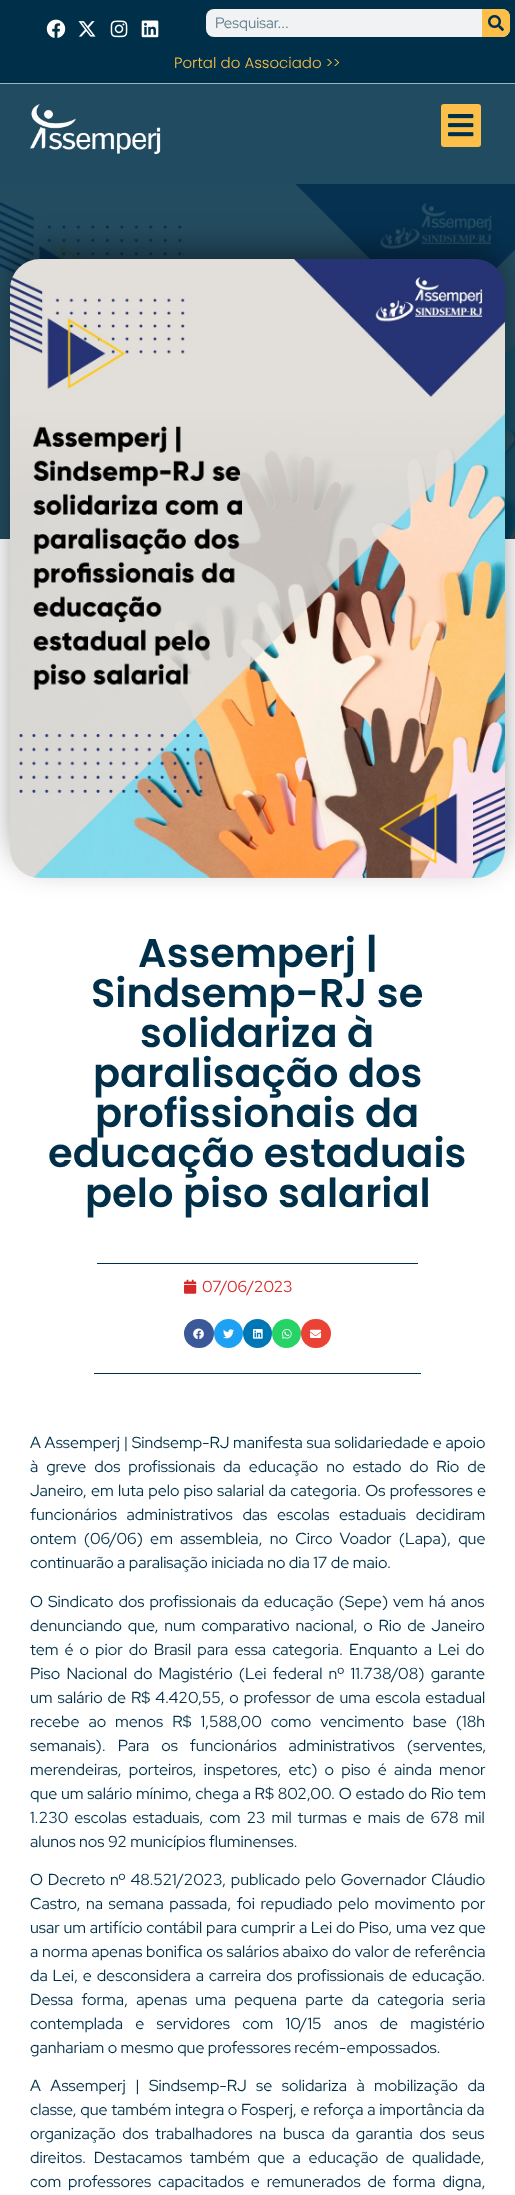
<!DOCTYPE html>
<meta charset="utf-8">
<style>body { margin: 0 } canvas { display: block }</style>
<canvas id="canvas" width="515" height="2195"></canvas>
<img id="img1" src="images/1.png" hidden>
<img id="img2" src="images/2.png" hidden>
<img id="img3" src="images/3.png" hidden>
<img id="img4" src="images/4.png" hidden>
<img id="img5" src="images/5.png" hidden>
<img id="img6" src="images/6.png" hidden>
<img id="img7" src="images/7.png" hidden>
<img id="img8" src="images/8.png" hidden>
<img id="img9" src="images/9.png" hidden>
<img id="img10" src="images/10.png" hidden>
<img id="img11" src="images/11.png" hidden>
<img id="img12" src="images/12.png" hidden>
<img id="img13" src="images/13.png" hidden>
<img id="img14" src="images/14.png" hidden>
<img id="img15" src="images/15.png" hidden>
<script>
window.onload = function () {
    const canvas = document.getElementById('canvas');
    const context = canvas.getContext('2d');
    context.miterLimit = 4;
    context.fontKerning = 'normal';

    context.fillStyle = 'rgb(255, 255, 255)';
    context.fillRect(0, 0, 515, 2195);
    context.fillStyle = 'rgb(0, 48, 73)';
    context.fillRect(0, 0, 515, 83);
    context.fillStyle = 'rgb(163, 180, 189)';
    context.fillRect(0, 83, 515, 1);
    context.drawImage(document.getElementById('img1'), 46, 19, 20, 19);
    context.drawImage(document.getElementById('img2'), 78, 21, 18, 16);
    context.drawImage(document.getElementById('img3'), 110, 20, 18, 18);
    context.drawImage(document.getElementById('img4'), 141, 20, 18, 18);
    context.fillStyle = 'rgb(241, 242, 243)';
    context.beginPath();
    context.roundRect(206, 9, 304, 28, 8);
    context.fill();
    context.fillStyle = 'rgb(252, 191, 73)';
    context.beginPath();
    context.roundRect(482, 9, 28, 28, [0, 8, 8, 0]);
    context.fill();
    context.drawImage(document.getElementById('img5'), 488, 15, 16, 16);
    context.fillStyle = 'rgb(33, 75, 97)';
    context.fillRect(0, 84, 515, 100);
    context.drawImage(document.getElementById('img6'), 30, 104, 131, 50);
    context.fillStyle = 'rgb(252, 191, 73)';
    context.beginPath();
    context.roundRect(441, 104, 40, 43, 3);
    context.fill();
    context.drawImage(document.getElementById('img7'), 448, 114, 26, 23);
    context.drawImage(document.getElementById('img8'), 0, 184, 515, 355);
    context.fillStyle = 'rgba(0, 0, 0, 0.5)';
    context.filter = 'blur(17px)';
    context.beginPath();
    context.roundRect(16, 253, 483, 607, 24);
    context.fill();
    context.filter = 'none';
    context.drawImage(document.getElementById('img9'), 10, 259, 495, 619);
    context.fillStyle = 'rgb(0, 48, 73)';
    context.fillRect(97, 1263, 321, 1);
    context.drawImage(document.getElementById('img10'), 184, 1279, 13, 15);
    context.fillStyle = 'rgb(59, 89, 152)';
    context.beginPath();
    context.roundRect(184, 1319, 30, 29, 14.5);
    context.fill();
    context.drawImage(document.getElementById('img11'), 193, 1328, 11, 12);
    context.fillStyle = 'rgb(29, 161, 242)';
    context.beginPath();
    context.arc(228.5, 1333.5, 14.5, 0, 2 * Math.PI);
    context.fill();
    context.drawImage(document.getElementById('img12'), 223, 1329, 11, 10);
    context.fillStyle = 'rgb(0, 119, 181)';
    context.beginPath();
    context.arc(257.5, 1333.5, 14.5, 0, 2 * Math.PI);
    context.fill();
    context.drawImage(document.getElementById('img13'), 253, 1329, 10, 10);
    context.fillStyle = 'rgb(37, 211, 102)';
    context.beginPath();
    context.arc(286.5, 1333.5, 14.5, 0, 2 * Math.PI);
    context.fill();
    context.drawImage(document.getElementById('img14'), 282, 1329, 10, 10);
    context.fillStyle = 'rgb(234, 67, 53)';
    context.beginPath();
    context.roundRect(301, 1319, 30, 29, 14.5);
    context.fill();
    context.drawImage(document.getElementById('img15'), 310, 1329, 12, 9);
    context.fillStyle = 'rgb(0, 48, 73)';
    context.fillRect(94, 1373, 327, 1);
    context.font = '15px Red Hat Display';
    context.fillStyle = 'rgb(96, 126, 141)';
    context.fillText('Pesquisar...', 215, 28);
    context.font = '300 15px Poppins';
    context.fillStyle = 'rgb(252, 191, 73)';
    context.fillText('Portal do Associado >>', 174, 68);
    context.font = '600 40px Poppins';
    context.fillStyle = 'rgb(0, 48, 73)';
    context.fillText('Assemperj |', 138, 967);
    context.fillText('Sindsemp-RJ se', 91, 1007);
    context.fillText('solidariza à', 140, 1047);
    context.fillText('paralisação dos', 93, 1087);
    context.fillText('profissionais da', 95, 1127);
    context.fillText('educação estaduais', 48, 1167);
    context.fillText('pelo piso salarial', 85, 1207);
    context.font = '16px Red Hat Display';
    context.fillStyle = 'rgb(214, 40, 40)';
    context.fillText('07/06/2023', 202, 1292);
    context.wordSpacing = '0.25px';
    context.fillStyle = 'rgb(0, 48, 73)';
    context.fillText('A Assemperj | Sindsemp-RJ manifesta sua solidariedade e apoio', 30, 1448);
    context.wordSpacing = '4.5px';
    context.fillText('à greve dos profissionais da educação no estado do Rio de', 30, 1472);
    context.wordSpacing = '0.75px';
    context.fillText('Janeiro, em luta pelo piso salarial da categoria. Os professores e', 30, 1496);
    context.wordSpacing = '6.25px';
    context.fillText('funcionários administrativos das escolas estaduais decidiram', 30, 1520);
    context.wordSpacing = '3.75px';
    context.fillText('ontem (06/06) em assembleia, no Circo Voador (Lapa), que', 30, 1544);
    context.wordSpacing = '0px';
    context.fillText('continuarão a paralisação iniciada no dia 17 de maio.', 30, 1568);
    context.wordSpacing = '1.5px';
    context.fillText('O Sindicato dos profissionais da educação (Sepe) vem há anos', 30, 1607);
    context.wordSpacing = '2.25px';
    context.fillText('denunciando que, num comparativo nacional, o Rio de Janeiro', 30, 1631);
    context.wordSpacing = '2.6px';
    context.fillText('tem é o pior do Brasil para essa categoria. Enquanto a Lei do', 30, 1655);
    context.wordSpacing = '2.75px';
    context.fillText('Piso Nacional do Magistério (Lei federal nº 11.738/08) garante', 30, 1679);
    context.wordSpacing = '1.5px';
    context.fillText('um salário de R$ 4.420,55, o professor de uma escola estadual', 30, 1703);
    context.wordSpacing = '5.5px';
    context.fillText('recebe ao menos R$ 1,588,00 como vencimento base (18h', 30, 1727);
    context.wordSpacing = '8.5px';
    context.fillText('semanais). Para os funcionários administrativos (serventes,', 30, 1751);
    context.wordSpacing = '3.75px';
    context.fillText('merendeiras, porteiros, inspetores, etc) o piso é ainda menor', 30, 1775);
    context.wordSpacing = '0.25px';
    context.fillText('que um salário mínimo, chega a R$ 802,00. O estado do Rio tem', 30, 1799);
    context.wordSpacing = '2.5px';
    context.fillText('1.230 escolas estaduais, com 23 mil turmas e mais de 678 mil', 30, 1823);
    context.wordSpacing = '0px';
    context.fillText('alunos nos 92 municípios fluminenses.', 30, 1847);
    context.wordSpacing = '1.25px';
    context.fillText('O Decreto nº 48.521/2023, publicado pelo Governador Cláudio', 30, 1885);
    context.wordSpacing = '2px';
    context.fillText('Castro, na semana passada, foi repudiado pelo movimento por', 30, 1909);
    context.wordSpacing = '0.25px';
    context.fillText('usar um artifício contábil para cumprir a Lei do Piso, uma vez que', 30, 1933);
    context.fillText('a norma apenas bonifica os salários abaixo do valor de referência', 30, 1957);
    context.wordSpacing = '1.4px';
    context.fillText('da Lei, e desconsidera a carreira dos profissionais de educação.', 30, 1981);
    context.wordSpacing = '4.75px';
    context.fillText('Dessa forma, apenas uma pequena parte da categoria seria', 30, 2005);
    context.wordSpacing = '8.75px';
    context.fillText('contemplada e servidores com 10/15 anos de magistério', 30, 2029);
    context.wordSpacing = '0px';
    context.fillText('ganhariam o mesmo que professores recém-empossados.', 30, 2053);
    context.wordSpacing = '6px';
    context.fillText('A Assemperj | Sindsemp-RJ se solidariza à mobilização da', 30, 2091);
    context.wordSpacing = '0.25px';
    context.fillText('classe, que também integra o Fosperj, e reforça a importância da', 30, 2115);
    context.wordSpacing = '3.25px';
    context.fillText('organização dos trabalhadores na busca da garantia dos seus', 30, 2139);
    context.wordSpacing = '4.25px';
    context.fillText('direitos. Destacamos também que a educação de qualidade,', 30, 2163);
    context.wordSpacing = '3.5px';
    context.fillText('com professores capacitados e remunerados de forma digna,', 30, 2187);
};
</script>
